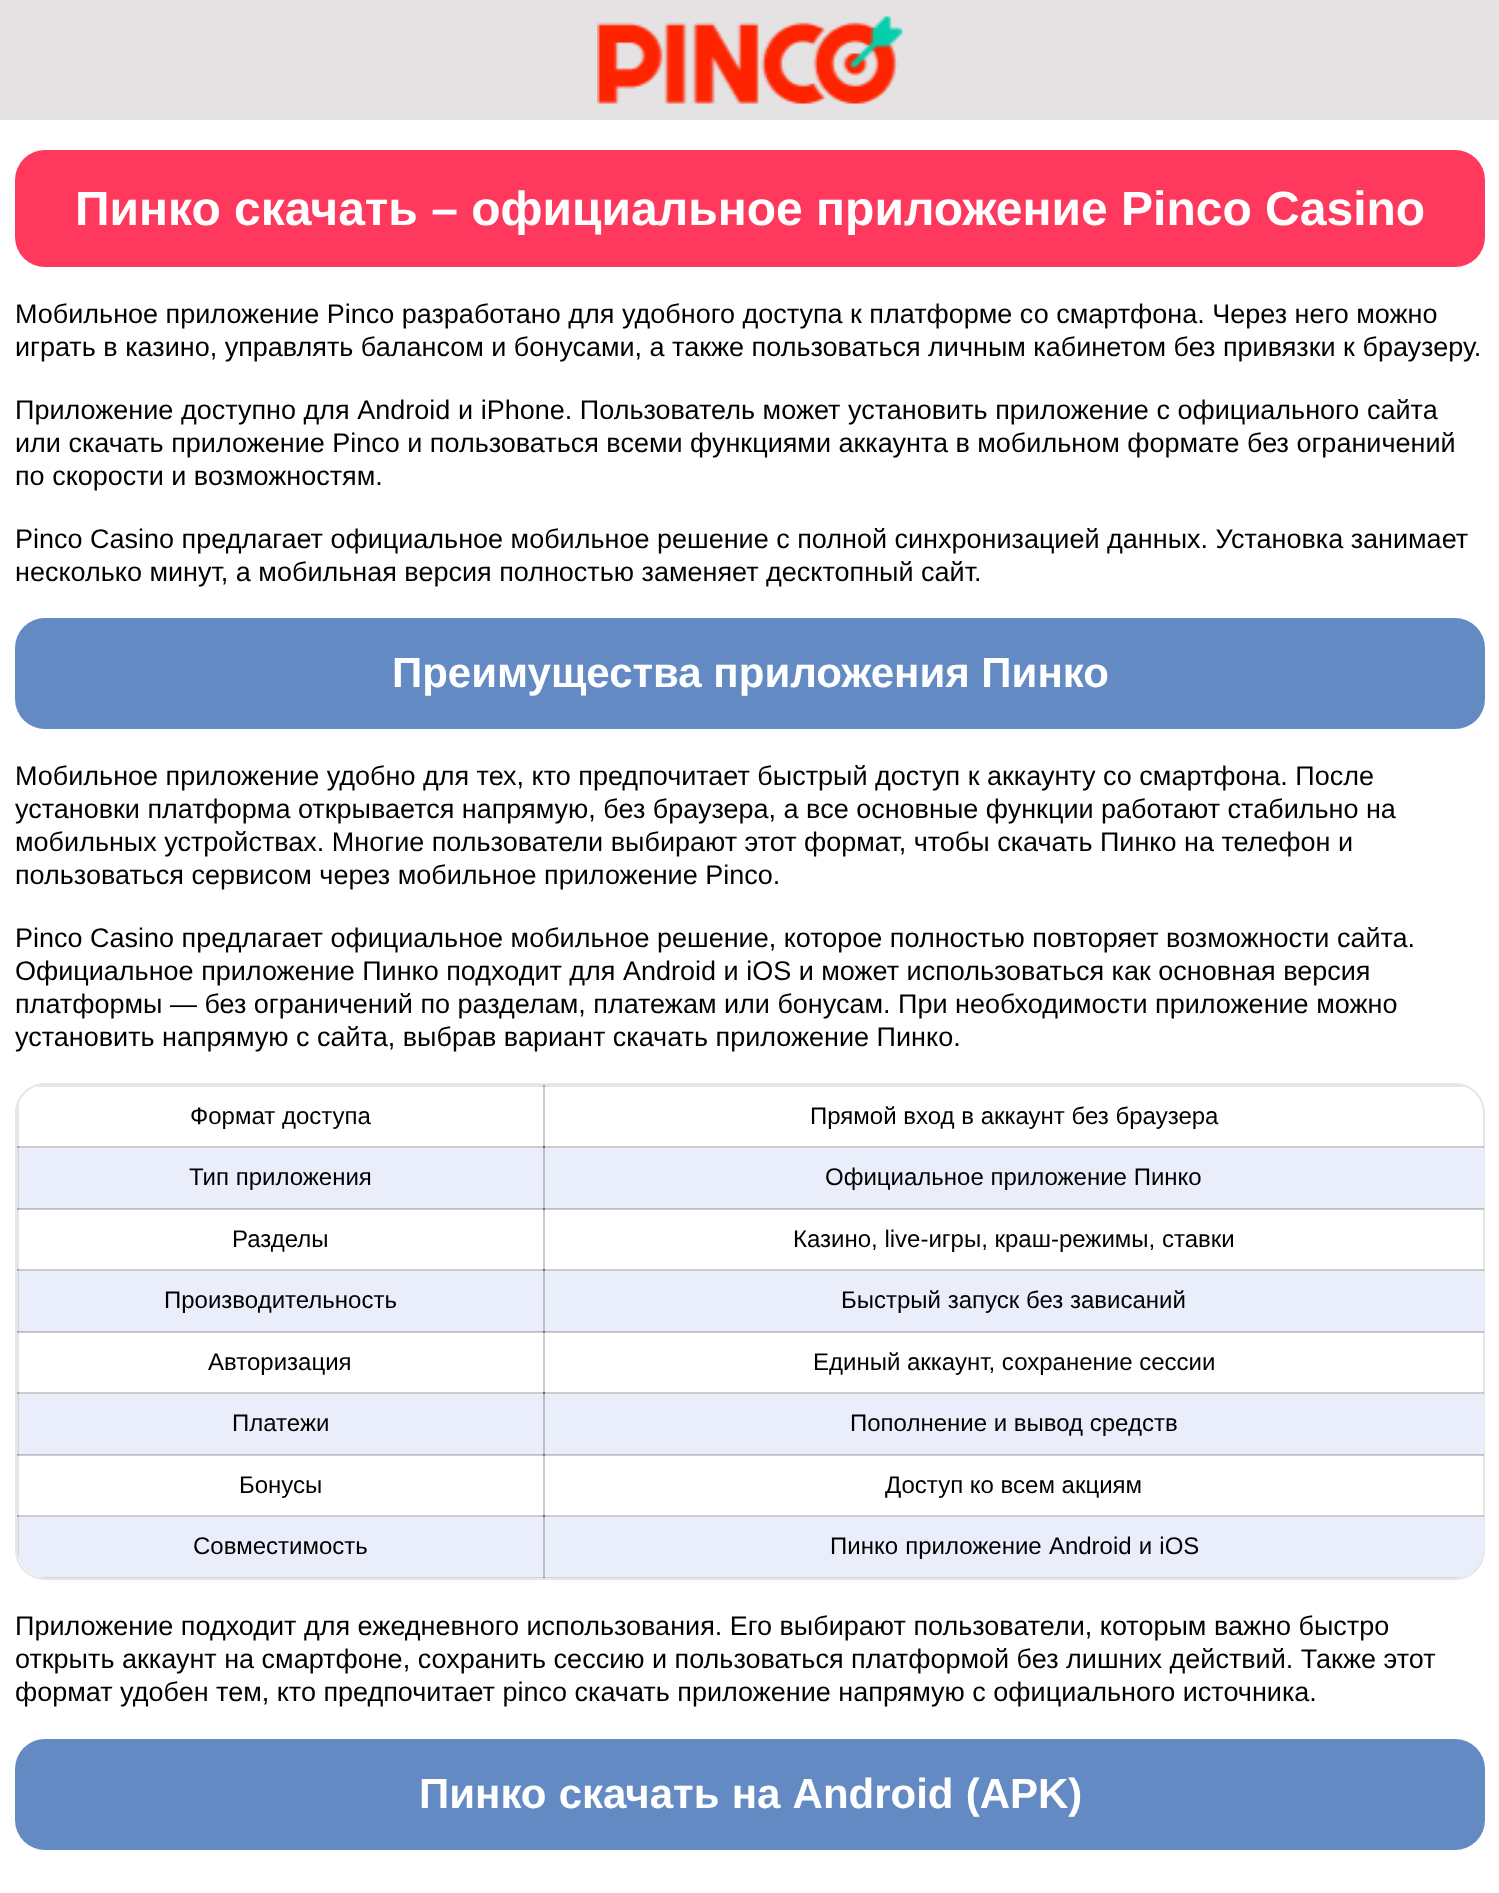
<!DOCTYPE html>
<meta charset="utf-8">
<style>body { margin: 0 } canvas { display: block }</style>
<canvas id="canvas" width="1499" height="1893"></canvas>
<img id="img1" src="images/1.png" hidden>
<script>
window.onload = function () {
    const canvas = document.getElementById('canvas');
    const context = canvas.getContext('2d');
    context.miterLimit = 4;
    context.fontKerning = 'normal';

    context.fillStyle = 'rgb(255, 255, 255)';
    context.fillRect(0, 0, 1499, 1893);
    context.fillStyle = 'rgb(228, 226, 227)';
    context.fillRect(0, 0, 1499, 120);
    context.drawImage(document.getElementById('img1'), 597, 16, 306, 88);
    context.fillStyle = 'rgb(255, 57, 93)';
    context.beginPath();
    context.roundRect(15, 150, 1470, 117, 30);
    context.fill();
    context.fillStyle = 'rgb(100, 138, 196)';
    context.beginPath();
    context.roundRect(15, 618, 1470, 111, 30);
    context.fill();
    context.beginPath();
    context.roundRect(16, 1084, 1468, 495, 29);
    context.strokeStyle = 'rgb(230, 230, 230)';
    context.lineWidth = 2;
    context.stroke();
    context.save();
    context.beginPath();
    context.roundRect(17, 1085, 1467, 493, 29);
    context.clip();
    context.fillStyle = 'rgba(0, 0, 0, 0.1)';
    context.fillRect(543, 1085, 922, 2);
    context.restore();
    context.fillStyle = 'rgba(0, 0, 0, 0.1)';
    context.fillRect(543, 1146, 941, 2);
    context.fillStyle = 'rgb(234, 238, 251)';
    context.fillRect(18, 1148, 1466, 61);
    context.fillStyle = 'rgba(0, 0, 0, 0.1)';
    context.fillRect(543, 1208, 941, 2);
    context.fillRect(543, 1269, 941, 2);
    context.fillStyle = 'rgb(234, 238, 251)';
    context.fillRect(18, 1271, 1466, 61);
    context.fillStyle = 'rgba(0, 0, 0, 0.1)';
    context.fillRect(543, 1331, 941, 2);
    context.fillRect(543, 1392, 941, 2);
    context.fillStyle = 'rgb(234, 238, 251)';
    context.fillRect(18, 1394, 1466, 61);
    context.fillStyle = 'rgba(0, 0, 0, 0.1)';
    context.fillRect(543, 1454, 941, 2);
    context.fillRect(543, 1515, 941, 2);
    context.save();
    context.beginPath();
    context.roundRect(17, 1085, 1467, 493, 29);
    context.clip();
    context.fillStyle = 'rgb(234, 238, 251)';
    context.beginPath();
    context.roundRect(18, 1517, 1466, 61, [0, 0, 29, 0]);
    context.fill();
    context.fillStyle = 'rgba(0, 0, 0, 0.1)';
    context.fillRect(543, 1577, 919, 1);
    context.restore();
    context.fillRect(543, 1515, 2, 63);
    context.fillRect(17, 1515, 528, 2);
    context.fillRect(543, 1515, 2, 63);
    context.fillRect(543, 1515, 941, 2);
    context.fillRect(543, 1454, 2, 63);
    context.fillRect(17, 1454, 528, 2);
    context.fillRect(543, 1454, 2, 63);
    context.fillRect(543, 1454, 941, 2);
    context.fillRect(543, 1392, 2, 63);
    context.fillRect(17, 1392, 528, 2);
    context.fillRect(543, 1392, 2, 63);
    context.fillRect(543, 1392, 941, 2);
    context.fillRect(543, 1331, 2, 63);
    context.fillRect(17, 1331, 528, 2);
    context.fillRect(543, 1331, 2, 63);
    context.fillRect(543, 1331, 941, 2);
    context.fillRect(543, 1269, 2, 63);
    context.fillRect(17, 1269, 528, 2);
    context.fillRect(543, 1269, 2, 63);
    context.fillRect(543, 1269, 941, 2);
    context.fillRect(543, 1208, 2, 63);
    context.fillRect(17, 1208, 528, 2);
    context.fillRect(543, 1208, 2, 63);
    context.fillRect(543, 1208, 941, 2);
    context.fillRect(543, 1146, 2, 63);
    context.fillRect(17, 1146, 528, 2);
    context.fillRect(543, 1146, 2, 63);
    context.fillRect(543, 1146, 941, 2);
    context.fillRect(543, 1085, 2, 63);
    context.save();
    context.beginPath();
    context.roundRect(17, 1085, 1467, 493, 29);
    context.clip();
    context.fillRect(36, 1085, 509, 2);
    context.restore();
    context.fillRect(543, 1085, 2, 63);
    context.save();
    context.beginPath();
    context.roundRect(17, 1085, 1467, 493, 29);
    context.clip();
    context.fillRect(17, 1515, 2, 44);
    context.restore();
    context.fillRect(17, 1515, 528, 2);
    context.fillRect(17, 1454, 2, 63);
    context.fillRect(17, 1454, 528, 2);
    context.fillRect(17, 1392, 2, 63);
    context.fillRect(17, 1392, 528, 2);
    context.fillRect(17, 1331, 2, 63);
    context.fillRect(17, 1331, 528, 2);
    context.fillRect(17, 1269, 2, 63);
    context.fillRect(17, 1269, 528, 2);
    context.fillRect(17, 1208, 2, 63);
    context.fillRect(17, 1208, 528, 2);
    context.fillRect(17, 1146, 2, 63);
    context.fillRect(17, 1146, 528, 2);
    context.save();
    context.beginPath();
    context.roundRect(17, 1085, 1467, 493, 29);
    context.clip();
    context.fillRect(17, 1104, 2, 44);
    context.fillRect(39, 1577, 506, 1);
    context.restore();
    context.fillStyle = 'rgb(100, 138, 196)';
    context.beginPath();
    context.roundRect(15, 1739, 1470, 111, 30);
    context.fill();
    context.font = 'bold 48px Liberation Sans';
    context.fillStyle = 'rgb(255, 255, 255)';
    context.fillText('Пинко скачать – официальное приложение Pinco Casino', 75, 225);
    context.font = '27px Liberation Sans';
    context.fillStyle = 'rgb(0, 0, 0)';
    context.fillText('Мобильное приложение Pinco разработано для удобного доступа к платформе со смартфона. Через него можно', 15, 323);
    context.fillText('играть в казино, управлять балансом и бонусами, а также пользоваться личным кабинетом без привязки к браузеру.', 15, 356);
    context.wordSpacing = '0.1px';
    context.fillText('Приложение доступно для Android и iPhone. Пользователь может установить приложение с официального сайта', 15, 419);
    context.wordSpacing = '0px';
    context.fillText('или скачать приложение Pinco и пользоваться всеми функциями аккаунта в мобильном формате без ограничений', 15, 452);
    context.fillText('по скорости и возможностям.', 15, 485);
    context.fillText('Pinco Casino предлагает официальное мобильное решение с полной синхронизацией данных. Установка занимает', 15, 548);
    context.fillText('несколько минут, а мобильная версия полностью заменяет десктопный сайт.', 15, 581);
    context.font = 'bold 42px Liberation Sans';
    context.fillStyle = 'rgb(255, 255, 255)';
    context.fillText('Преимущества приложения Пинко', 392, 687);
    context.font = '27px Liberation Sans';
    context.fillStyle = 'rgb(0, 0, 0)';
    context.fillText('Мобильное приложение удобно для тех, кто предпочитает быстрый доступ к аккаунту со смартфона. После', 15, 785);
    context.fillText('установки платформа открывается напрямую, без браузера, а все основные функции работают стабильно на', 15, 818);
    context.fillText('мобильных устройствах. Многие пользователи выбирают этот формат, чтобы скачать Пинко на телефон и', 15, 851);
    context.fillText('пользоваться сервисом через мобильное приложение Pinco.', 15, 884);
    context.fillText('Pinco Casino предлагает официальное мобильное решение, которое полностью повторяет возможности сайта.', 15, 947);
    context.fillText('Официальное приложение Пинко подходит для Android и iOS и может использоваться как основная версия', 15, 980);
    context.fillText('платформы — без ограничений по разделам, платежам или бонусам. При необходимости приложение можно', 15, 1013);
    context.fillText('установить напрямую с сайта, выбрав вариант скачать приложение Пинко.', 15, 1046);
    context.font = '24px Liberation Sans';
    context.fillText('Формат доступа', 190, 1124);
    context.fillText('Прямой вход в аккаунт без браузера', 810, 1124);
    context.fillText('Тип приложения', 189, 1185);
    context.fillText('Официальное приложение Пинко', 825, 1185);
    context.fillText('Разделы', 232, 1247);
    context.fillText('Казино, live-игры, краш-режимы, ставки', 793, 1247);
    context.fillText('Производительность', 164, 1308);
    context.fillText('Быстрый запуск без зависаний', 841, 1308);
    context.fillText('Авторизация', 208, 1370);
    context.fillText('Единый аккаунт, сохранение сессии', 813, 1370);
    context.fillText('Платежи', 232, 1431);
    context.fillText('Пополнение и вывод средств', 850, 1431);
    context.fillText('Бонусы', 239, 1493);
    context.fillText('Доступ ко всем акциям', 885, 1493);
    context.fillText('Совместимость', 193, 1554);
    context.wordSpacing = '0.5px';
    context.fillText('Пинко приложение Android и iOS', 830, 1554);
    context.wordSpacing = '0px';
    context.font = '27px Liberation Sans';
    context.fillText('Приложение подходит для ежедневного использования. Его выбирают пользователи, которым важно быстро', 15, 1635);
    context.fillText('открыть аккаунт на смартфоне, сохранить сессию и пользоваться платформой без лишних действий. Также этот', 15, 1668);
    context.fillText('формат удобен тем, кто предпочитает pinco скачать приложение напрямую с официального источника.', 15, 1701);
    context.wordSpacing = '0.5px';
    context.font = 'bold 42px Liberation Sans';
    context.fillStyle = 'rgb(255, 255, 255)';
    context.fillText('Пинко скачать на Android (APK)', 419, 1808);
};
</script>
